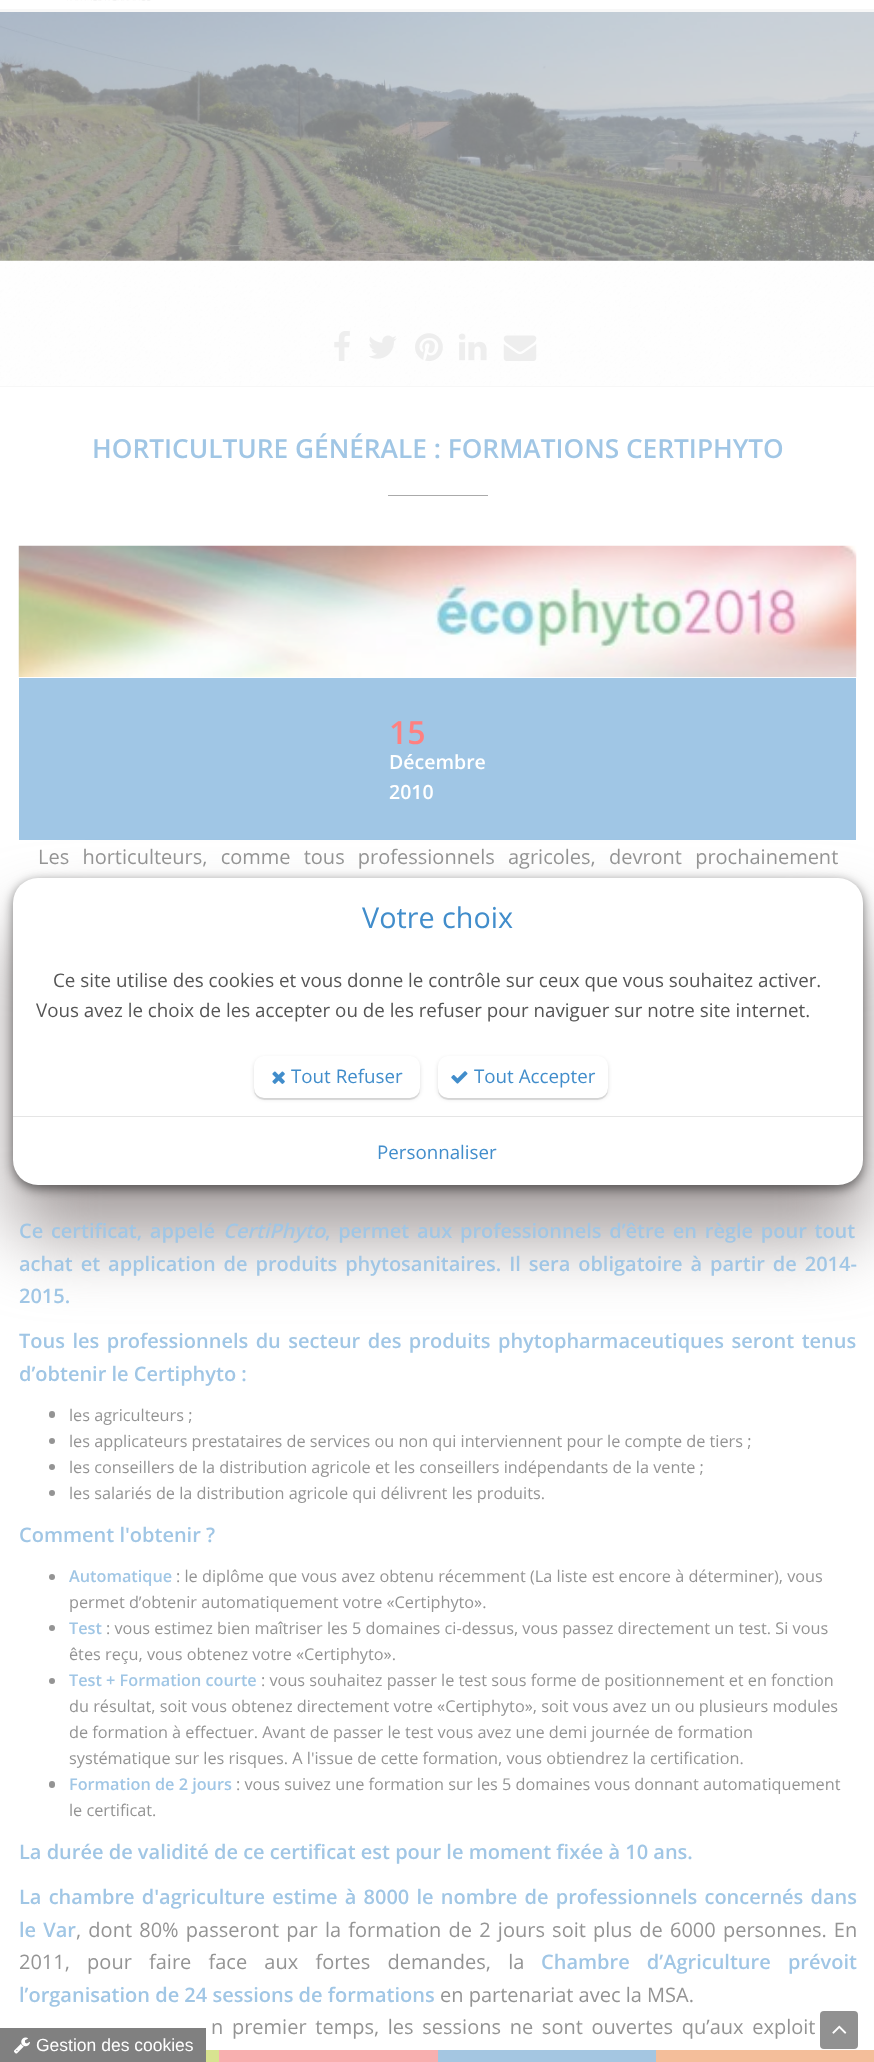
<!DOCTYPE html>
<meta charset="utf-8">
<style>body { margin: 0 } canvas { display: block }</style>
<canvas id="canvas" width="874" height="2062"></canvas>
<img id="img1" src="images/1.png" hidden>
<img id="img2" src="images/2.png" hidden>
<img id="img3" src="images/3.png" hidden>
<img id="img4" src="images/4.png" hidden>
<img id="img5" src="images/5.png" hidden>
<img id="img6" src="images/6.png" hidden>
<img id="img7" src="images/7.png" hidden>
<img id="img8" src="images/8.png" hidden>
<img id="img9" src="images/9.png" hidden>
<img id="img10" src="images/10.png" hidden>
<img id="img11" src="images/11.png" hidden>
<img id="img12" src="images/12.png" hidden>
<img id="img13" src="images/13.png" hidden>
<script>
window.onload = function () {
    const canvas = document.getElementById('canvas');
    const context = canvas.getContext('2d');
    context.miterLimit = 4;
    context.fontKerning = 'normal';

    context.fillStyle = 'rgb(255, 255, 255)';
    context.fillRect(0, 0, 874, 2062);
    context.fillStyle = 'rgb(247, 247, 247)';
    context.fillRect(0, 9, 874, 3);
    context.drawImage(document.getElementById('img1'), 67, 0, 84, 1);
    context.drawImage(document.getElementById('img2'), 0, 12, 874, 249);
    context.drawImage(document.getElementById('img3'), 0, 261, 874, 125);
    context.fillRect(0, 386, 874, 1);
    context.drawImage(document.getElementById('img4'), 334, 331, 16, 30);
    context.drawImage(document.getElementById('img5'), 369, 335, 28, 24);
    context.drawImage(document.getElementById('img6'), 415, 333, 28, 28);
    context.drawImage(document.getElementById('img7'), 458, 333, 29, 28);
    context.drawImage(document.getElementById('img8'), 503, 335, 34, 26);
    context.fillStyle = 'rgb(170, 170, 170)';
    context.fillRect(388, 495, 100, 1);
    context.drawImage(document.getElementById('img9'), 18, 545, 839, 132);
    context.fillStyle = 'rgb(160, 198, 229)';
    context.fillRect(19, 678, 837, 162);
    context.fillStyle = 'rgb(148, 148, 148)';
    context.beginPath();
    context.roundRect(49, 1411, 6, 7, 3);
    context.fill();
    context.beginPath();
    context.arc(52, 1441, 3, 0, 2 * Math.PI);
    context.fill();
    context.beginPath();
    context.arc(52, 1467, 3, 0, 2 * Math.PI);
    context.fill();
    context.beginPath();
    context.arc(52, 1493, 3, 0, 2 * Math.PI);
    context.fill();
    context.beginPath();
    context.arc(52, 1577, 3, 0, 2 * Math.PI);
    context.fill();
    context.beginPath();
    context.arc(52, 1628, 3, 0, 2 * Math.PI);
    context.fill();
    context.beginPath();
    context.arc(52, 1681, 3, 0, 2 * Math.PI);
    context.fill();
    context.beginPath();
    context.roundRect(49, 1781, 6, 7, 3);
    context.fill();
    context.fillStyle = 'rgb(216, 227, 144)';
    context.fillRect(206, 2050, 13, 12);
    context.fillStyle = 'rgb(248, 175, 175)';
    context.fillRect(219, 2050, 219, 12);
    context.fillStyle = 'rgb(164, 198, 225)';
    context.fillRect(438, 2050, 218, 12);
    context.fillStyle = 'rgb(244, 190, 154)';
    context.fillRect(656, 2050, 218, 12);
    context.fillStyle = 'rgba(149, 141, 141, 0.88)';
    context.filter = 'blur(37.5px)';
    context.beginPath();
    context.roundRect(13, 928, 850, 307, 25);
    context.fill();
    context.filter = 'none';
    context.fillStyle = 'rgba(0, 0, 0, 0.5)';
    context.filter = 'blur(5.5px)';
    context.beginPath();
    context.roundRect(13, 881, 850, 308, 25);
    context.fill();
    context.filter = 'none';
    context.fillStyle = 'rgb(255, 255, 255)';
    context.beginPath();
    context.roundRect(13, 878, 850, 238, [25, 25, 0, 0]);
    context.fill();
    context.fillStyle = 'rgba(0, 0, 0, 0.13)';
    context.filter = 'blur(2px)';
    context.beginPath();
    context.roundRect(254, 1058, 166, 41, 10);
    context.fill();
    context.filter = 'none';
    context.fillStyle = 'rgba(0, 0, 0, 0.1)';
    context.filter = 'blur(0.5px)';
    context.beginPath();
    context.roundRect(254, 1059, 166, 41, 10);
    context.fill();
    context.filter = 'none';
    context.fillStyle = 'rgb(255, 255, 255)';
    context.beginPath();
    context.roundRect(254, 1056, 166, 42, 10);
    context.fill();
    context.drawImage(document.getElementById('img10'), 272, 1071, 13, 13);
    context.fillStyle = 'rgba(0, 0, 0, 0.13)';
    context.filter = 'blur(2px)';
    context.beginPath();
    context.roundRect(438, 1058, 170, 41, 10);
    context.fill();
    context.filter = 'none';
    context.fillStyle = 'rgba(0, 0, 0, 0.1)';
    context.filter = 'blur(0.5px)';
    context.beginPath();
    context.roundRect(438, 1059, 170, 41, 10);
    context.fill();
    context.filter = 'none';
    context.fillStyle = 'rgb(255, 255, 255)';
    context.beginPath();
    context.roundRect(438, 1056, 170, 42, 10);
    context.fill();
    context.drawImage(document.getElementById('img11'), 451, 1071, 17, 13);
    context.beginPath();
    context.roundRect(13, 1116, 850, 69, [0, 0, 25, 25]);
    context.fill();
    context.fillStyle = 'rgb(229, 229, 229)';
    context.fillRect(13, 1116, 850, 1);
    context.fillStyle = 'rgb(128, 128, 128)';
    context.fillRect(0, 2028, 206, 34);
    context.drawImage(document.getElementById('img12'), 14, 2037, 16, 17);
    context.fillStyle = 'rgb(145, 145, 145)';
    context.beginPath();
    context.roundRect(820, 2011, 38, 38, 4);
    context.fill();
    context.drawImage(document.getElementById('img13'), 832, 2025, 15, 9);
    context.font = '600 26.25px Open Sans';
    context.fillStyle = 'rgb(160, 198, 229)';
    context.fillText('HORTICULTURE GÉNÉRALE : FORMATIONS CERTIPHYTO', 92, 458);
    context.font = '600 32px Open Sans';
    context.fillStyle = 'rgb(255, 128, 128)';
    context.fillText('15', 389, 744);
    context.font = '600 19.5px Open Sans';
    context.fillStyle = 'rgb(255, 255, 255)';
    context.fillText('Décembre', 389, 769);
    context.fillText('2010', 389, 799);
    context.wordSpacing = '8px';
    context.font = '20px Open Sans';
    context.fillStyle = 'rgb(148, 148, 148)';
    context.fillText('Les horticulteurs, comme tous professionnels agricoles, devront prochainement', 38, 864);
    context.wordSpacing = '2.5px';
    context.font = '600 20px Open Sans';
    context.fillStyle = 'rgb(160, 198, 229)';
    context.fillText('Ce certificat, appelé', 19, 1238);
    context.wordSpacing = '0px';
    context.font = 'italic 600 20px Open Sans';
    context.fillText('CertiPhyto', 223, 1238);
    context.wordSpacing = '2.5px';
    context.font = '600 20px Open Sans';
    context.fillText(', permet aux professionnels d’être en règle pour tout', 325, 1238);
    context.wordSpacing = '2.75px';
    context.fillText('achat et application de produits phytosanitaires. Il sera obligatoire à partir de 2014-', 19, 1271);
    context.wordSpacing = '0px';
    context.fillText('2015.', 19, 1303);
    context.wordSpacing = '2.25px';
    context.fillText('Tous les professionnels du secteur des produits phytopharmaceutiques seront tenus', 19, 1348);
    context.wordSpacing = '0px';
    context.fillText('d’obtenir le Certiphyto :', 19, 1381);
    context.font = '16.25px Open Sans';
    context.fillStyle = 'rgb(148, 148, 148)';
    context.fillText('les agriculteurs ;', 69, 1421);
    context.fillText('les applicateurs prestataires de services ou non qui interviennent pour le compte de tiers ;', 69, 1447);
    context.fillText('les conseillers de la distribution agricole et les conseillers indépendants de la vente ;', 69, 1473);
    context.fillText('les salariés de la distribution agricole qui délivrent les produits.', 69, 1499);
    context.font = '600 20px Open Sans';
    context.fillStyle = 'rgb(160, 198, 229)';
    context.fillText('Comment l\'obtenir ?', 19, 1542);
    context.font = '600 16.25px Open Sans';
    context.fillText('Automatique', 69, 1582);
    context.font = '16.25px Open Sans';
    context.fillStyle = 'rgb(148, 148, 148)';
    context.fillText(': le diplôme que vous avez obtenu récemment (La liste est encore à déterminer), vous', 176, 1582);
    context.fillText('permet d’obtenir automatiquement votre «Certiphyto».', 69, 1608);
    context.font = '600 16.25px Open Sans';
    context.fillStyle = 'rgb(160, 198, 229)';
    context.fillText('Test', 69, 1634);
    context.font = '16.25px Open Sans';
    context.fillStyle = 'rgb(148, 148, 148)';
    context.fillText(': vous estimez bien maîtriser les 5 domaines ci-dessus, vous passez directement un test. Si vous', 106, 1634);
    context.fillText('êtes reçu, vous obtenez votre «Certiphyto».', 69, 1660);
    context.font = '600 16.25px Open Sans';
    context.fillStyle = 'rgb(160, 198, 229)';
    context.fillText('Test + Formation courte', 69, 1686);
    context.font = '16.25px Open Sans';
    context.fillStyle = 'rgb(148, 148, 148)';
    context.fillText(': vous souhaitez passer le test sous forme de positionnement et en fonction', 261, 1686);
    context.fillText('du résultat, soit vous obtenez directement votre «Certiphyto», soit vous avez un ou plusieurs modules', 69, 1712);
    context.fillText('de formation à effectuer. Avant de passer le test vous avez une demi journée de formation', 69, 1738);
    context.fillText('systématique sur les risques. A l\'issue de cette formation, vous obtiendrez la certification.', 69, 1764);
    context.font = '600 16.25px Open Sans';
    context.fillStyle = 'rgb(160, 198, 229)';
    context.fillText('Formation de 2 jours', 69, 1790);
    context.font = '16.25px Open Sans';
    context.fillStyle = 'rgb(148, 148, 148)';
    context.fillText(': vous suivez une formation sur les 5 domaines vous donnant automatiquement', 236, 1790);
    context.fillText('le certificat.', 69, 1816);
    context.font = '600 20px Open Sans';
    context.fillStyle = 'rgb(160, 198, 229)';
    context.fillText('La durée de validité de ce certificat est pour le moment fixée à 10 ans.', 19, 1859);
    context.wordSpacing = '2px';
    context.fillText('La chambre d\'agriculture estime à 8000 le nombre de professionnels concernés dans', 19, 1904);
    context.fillText('le Var', 19, 1937);
    context.font = '20px Open Sans';
    context.fillStyle = 'rgb(148, 148, 148)';
    context.fillText(', dont 80% passeront par la formation de 2 jours soit plus de 6000 personnes. En', 76, 1937);
    context.wordSpacing = '12px';
    context.fillText('2011, pour faire face aux fortes demandes, la', 19, 1969);
    context.font = '600 20px Open Sans';
    context.fillStyle = 'rgb(160, 198, 229)';
    context.fillText('Chambre d’Agriculture prévoit', 541, 1969);
    context.wordSpacing = '0px';
    context.fillText('l’organisation de 24 sessions de formations', 19, 2002);
    context.font = '20px Open Sans';
    context.fillStyle = 'rgb(148, 148, 148)';
    context.fillText('en partenariat avec la MSA.', 440, 2002);
    context.wordSpacing = '3.5px';
    context.fillText('n premier temps, les sessions ne sont ouvertes qu’aux exploit', 211, 2034);
    context.wordSpacing = '0px';
    context.font = '28.75px Open Sans';
    context.fillStyle = 'rgb(65, 141, 203)';
    context.fillText('Votre choix', 362, 928);
    context.font = '18.75px Open Sans';
    context.fillStyle = 'rgb(85, 85, 85)';
    context.fillText('Ce site utilise des cookies et vous donne le contrôle sur ceux que vous souhaitez activer.', 53, 987);
    context.fillText('Vous avez le choix de les accepter ou de les refuser pour naviguer sur notre site internet.', 36, 1017);
    context.fillStyle = 'rgb(65, 141, 203)';
    context.fillText('Tout Refuser', 291, 1083);
    context.fillText('Tout Accepter', 474, 1083);
    context.fillText('Personnaliser', 377, 1159);
    context.font = '17.5px Liberation Sans';
    context.fillStyle = 'rgb(255, 255, 255)';
    context.fillText('Gestion des cookies', 36, 2051);
};
</script>
